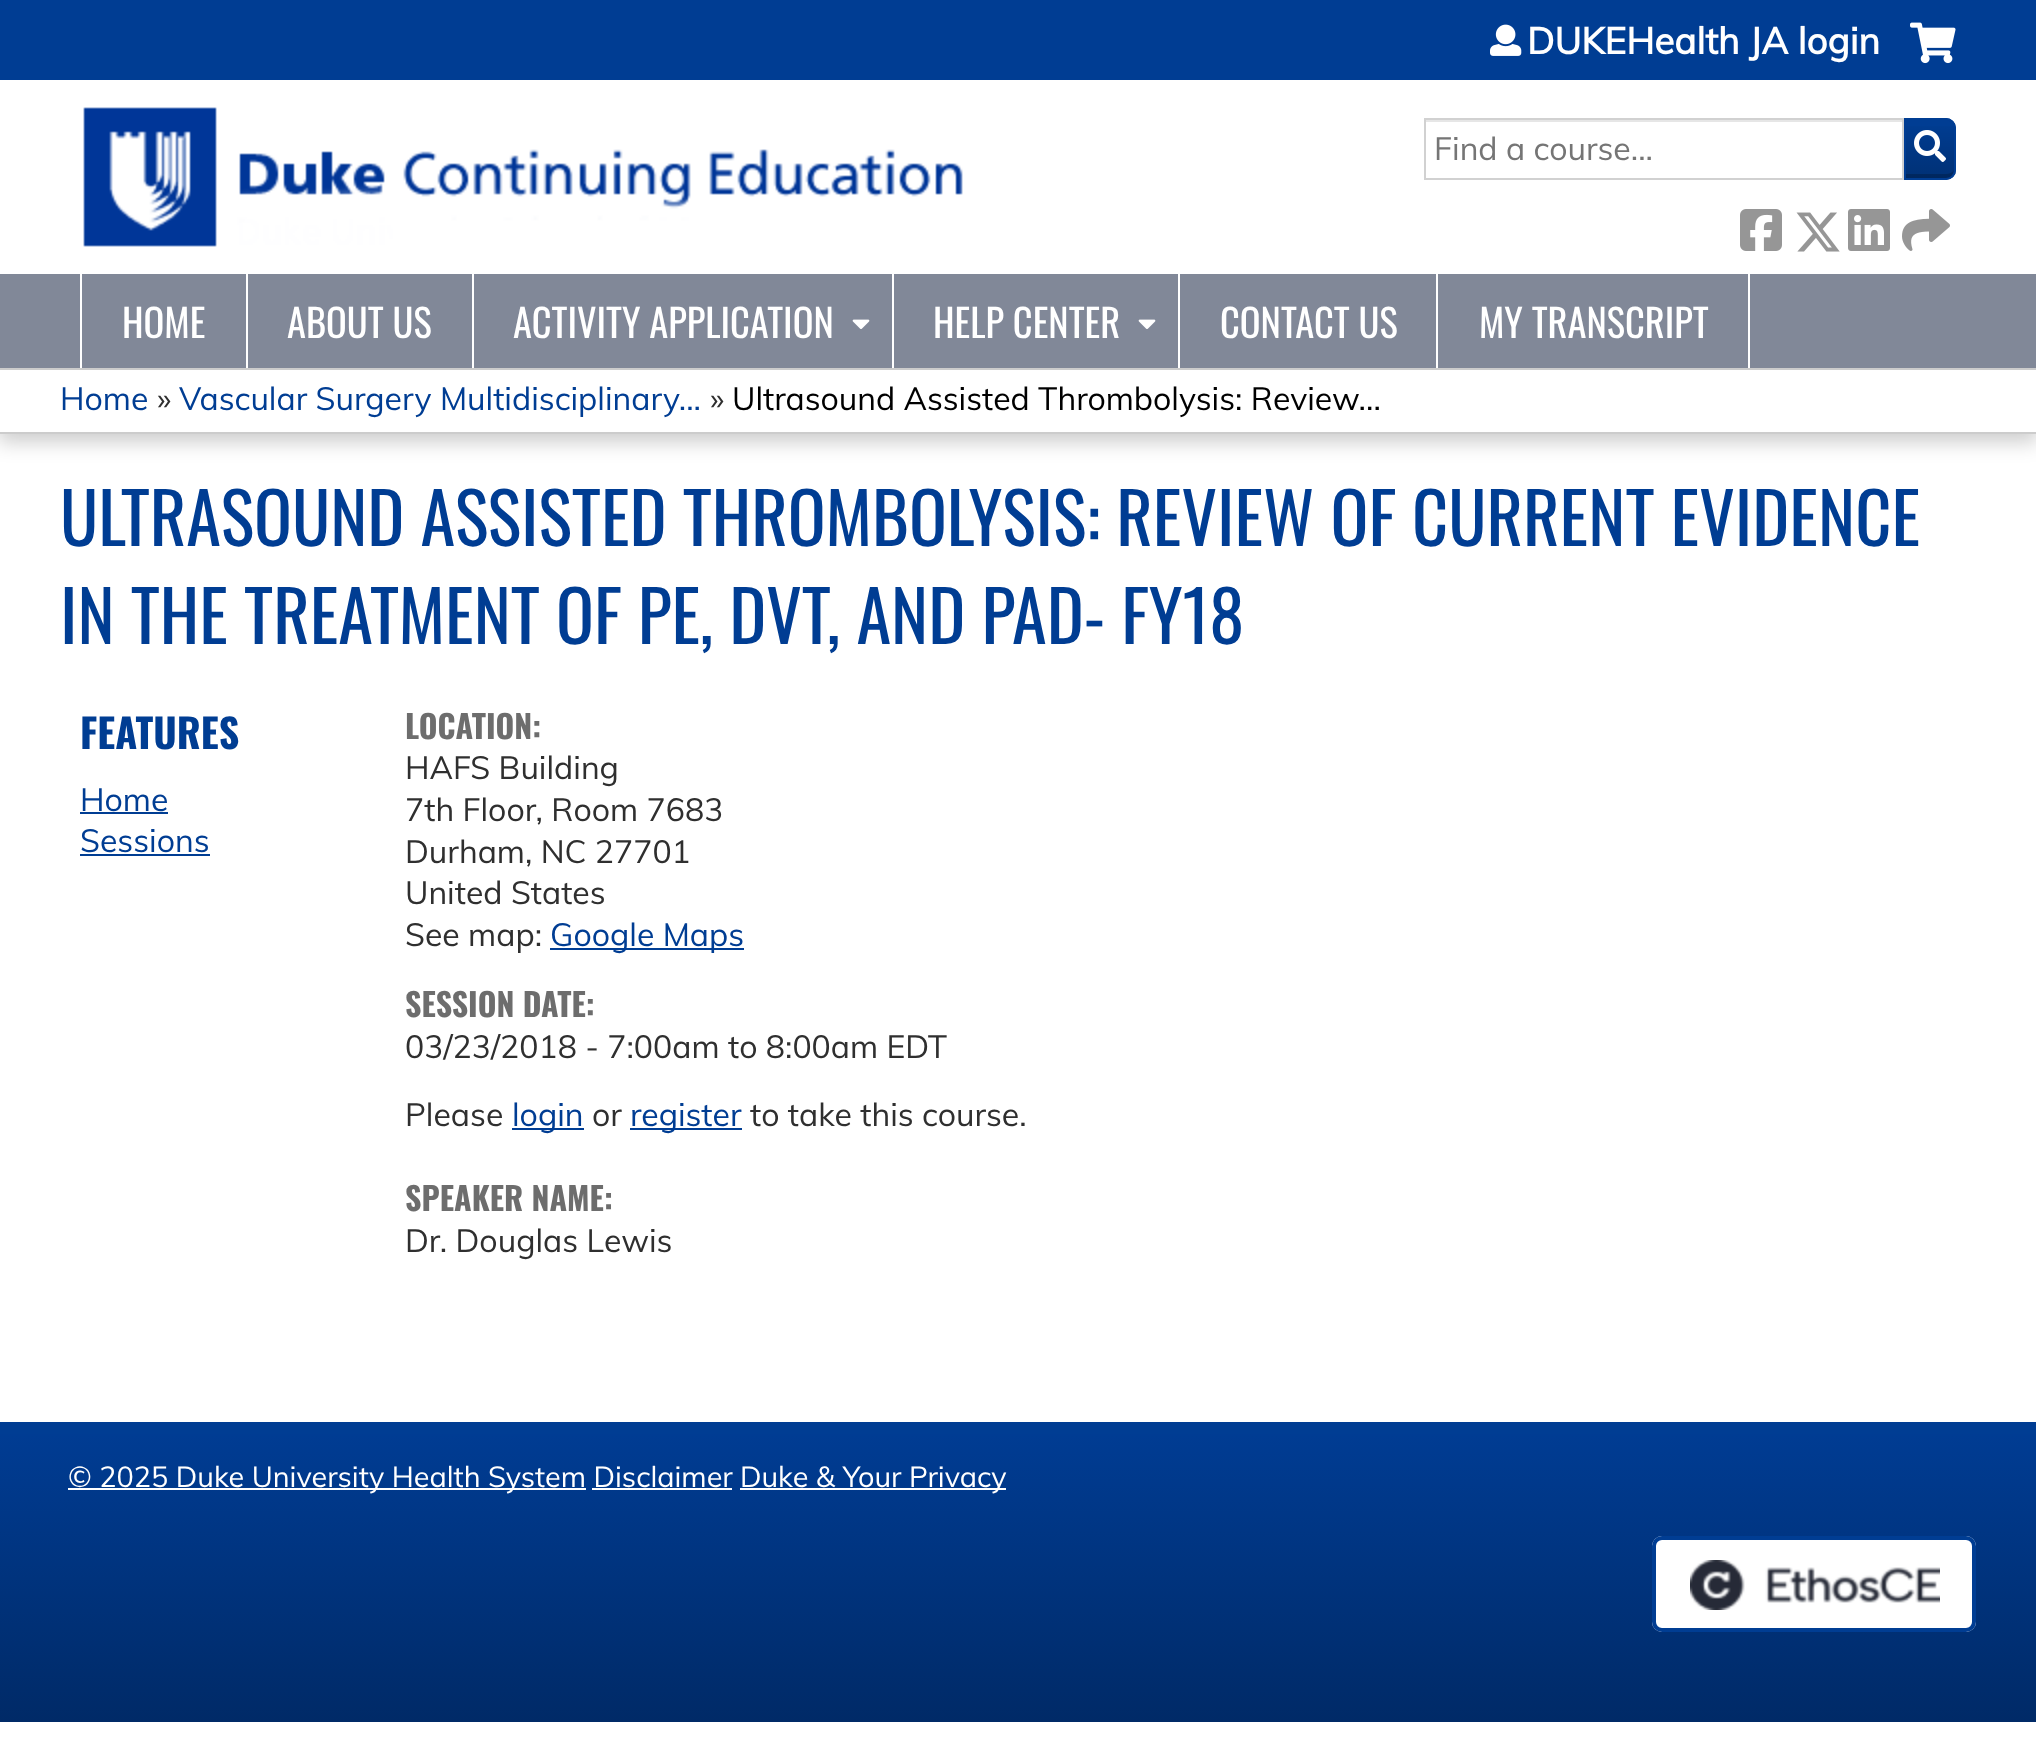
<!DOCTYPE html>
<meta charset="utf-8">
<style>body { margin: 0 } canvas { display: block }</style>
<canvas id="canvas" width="2036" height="1744"></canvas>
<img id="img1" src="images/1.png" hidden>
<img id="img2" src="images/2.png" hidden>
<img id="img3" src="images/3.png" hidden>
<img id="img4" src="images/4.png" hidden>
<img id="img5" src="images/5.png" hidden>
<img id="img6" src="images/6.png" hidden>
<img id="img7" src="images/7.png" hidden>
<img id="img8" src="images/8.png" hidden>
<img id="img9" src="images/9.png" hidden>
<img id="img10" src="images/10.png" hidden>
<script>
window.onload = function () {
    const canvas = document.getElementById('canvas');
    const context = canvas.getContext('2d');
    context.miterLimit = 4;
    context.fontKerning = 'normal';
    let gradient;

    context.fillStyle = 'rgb(255, 255, 255)';
    context.fillRect(0, 0, 2036, 1744);
    context.fillStyle = 'rgb(0, 61, 147)';
    context.fillRect(0, 0, 2036, 80);
    context.drawImage(document.getElementById('img1'), 1490, 24, 32, 32);
    context.drawImage(document.getElementById('img2'), 1910, 22, 46, 42);
    context.beginPath();
    context.roundRect(1904, 118, 52, 62, [0, 10, 10, 0]);
    context.fill();
    context.save();
    context.beginPath();
    context.roundRect(1904, 118, 52, 62, [0, 10, 10, 0]);
    context.clip();
    gradient = context.createLinearGradient(1930, 178, 1930, 120);
    gradient.addColorStop(0, 'rgba(0, 0, 0, 0.2)');
    gradient.addColorStop(1, 'rgba(0, 0, 0, 0)');
    context.fillStyle = gradient;
    context.fillRect(1906, 126, 50, 52);
    context.restore();
    context.fillStyle = 'rgba(0, 0, 0, 0.2)';
    context.beginPath();
    context.moveTo(1906, 174);
    context.lineTo(1906, 178);
    context.lineTo(1946, 178);
    context.bezierCurveTo(1950, 178, 1954, 175, 1954, 170);
    context.bezierCurveTo(1952, 173, 1949, 174, 1946, 174);
    context.closePath();
    context.fill();
    context.beginPath();
    context.roundRect(1905, 119, 50, 60, [0, 9, 9, 0]);
    context.strokeStyle = 'rgb(0, 61, 147)';
    context.lineWidth = 2;
    context.stroke();
    context.fillStyle = 'rgb(230, 230, 230)';
    context.fillRect(1426, 120, 476, 2);
    context.strokeStyle = 'rgb(209, 209, 209)';
    context.strokeRect(1425, 119, 478, 60);
    context.drawImage(document.getElementById('img3'), 1914, 130, 32, 32);
    context.drawImage(document.getElementById('img4'), 1740, 209, 42, 42);
    context.drawImage(document.getElementById('img5'), 1796, 212, 44, 40);
    context.drawImage(document.getElementById('img6'), 1848, 209, 42, 42);
    context.drawImage(document.getElementById('img7'), 1902, 209, 48, 42);
    context.drawImage(document.getElementById('img8'), 83, 107, 880, 140);
    context.fillStyle = 'rgba(0, 0, 0, 0.2)';
    context.filter = 'blur(10px)';
    context.beginPath();
    context.rect(-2, 372, 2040, 70);
    context.fill();
    context.filter = 'none';
    context.fillStyle = 'rgb(129, 136, 152)';
    context.fillRect(0, 274, 2036, 94);
    context.fillStyle = 'rgb(255, 255, 255)';
    context.fillRect(246, 274, 2, 94);
    context.fillRect(80, 274, 2, 94);
    context.fillRect(472, 274, 2, 94);
    context.fillRect(892, 274, 2, 94);
    context.drawImage(document.getElementById('img9'), 852, 319, 18, 10);
    context.fillRect(1178, 274, 2, 94);
    context.drawImage(document.getElementById('img9'), 1138, 319, 18, 10);
    context.fillRect(1436, 274, 2, 94);
    context.fillRect(1748, 274, 2, 94);
    context.fillRect(0, 370, 2036, 62);
    context.fillStyle = 'rgb(204, 204, 204)';
    context.fillRect(0, 368, 2036, 2);
    context.fillRect(0, 432, 2036, 2);
    context.fillStyle = 'rgb(0, 61, 147)';
    context.fillRect(80, 812, 88, 2);
    context.fillRect(80, 854, 130, 2);
    context.fillRect(550, 948, 194, 2);
    context.fillRect(512, 1128, 72, 2);
    context.fillRect(630, 1128, 112, 2);
    gradient = context.createLinearGradient(1018, 1722, 1018, 1434);
    gradient.addColorStop(0, 'rgb(0, 42, 103)');
    gradient.addColorStop(1, 'rgb(0, 60, 147)');
    context.fillStyle = gradient;
    context.fillRect(0, 1434, 2036, 288);
    context.fillStyle = 'rgb(0, 61, 147)';
    context.fillRect(0, 1422, 2036, 12);
    context.fillStyle = 'rgb(255, 255, 255)';
    context.fillRect(68, 1488, 518, 2);
    context.fillRect(740, 1488, 266, 2);
    context.fillRect(592, 1488, 140, 2);
    context.beginPath();
    context.roundRect(1652, 1536, 324, 96, 10);
    context.fill();
    context.drawImage(document.getElementById('img10'), 1690, 1560, 250, 50);
    context.beginPath();
    context.roundRect(1654, 1538, 320, 92, 8);
    context.strokeStyle = 'rgb(0, 61, 147)';
    context.lineWidth = 4;
    context.stroke();
    context.font = 'bold 36.75px Muli';
    context.fillText('DUKEHealth JA login', 1527, 54);
    context.font = '32px Muli';
    context.fillStyle = 'rgb(117, 117, 117)';
    context.fillText('Find a course...', 1434, 160);
    context.font = '38.5px Oswald';
    context.fillStyle = 'rgb(255, 255, 255)';
    context.fillText('HOME', 122, 338);
    context.fillText('ABOUT US', 287, 338);
    context.fillText('ACTIVITY APPLICATION', 513, 338);
    context.fillText('HELP CENTER', 933, 338);
    context.fillText('CONTACT US', 1220, 338);
    context.fillText('MY TRANSCRIPT', 1479, 338);
    context.font = '32px Muli';
    context.fillStyle = 'rgb(0, 61, 147)';
    context.fillText('Home', 60, 410);
    context.fillStyle = 'rgb(47, 47, 47)';
    context.fillText('»', 157, 410);
    context.fillStyle = 'rgb(0, 61, 147)';
    context.fillText('Vascular Surgery Multidisciplinary...', 179, 410);
    context.fillStyle = 'rgb(47, 47, 47)';
    context.fillText('»', 710, 410);
    context.fillStyle = 'rgb(0, 0, 0)';
    context.fillText('Ultrasound Assisted Thrombolysis: Review...', 732, 410);
    context.font = '70.4px Oswald';
    context.fillStyle = 'rgb(0, 61, 147)';
    context.fillText('ULTRASOUND ASSISTED THROMBOLYSIS: REVIEW OF CURRENT EVIDENCE', 60, 546);
    context.fillText('IN THE TREATMENT OF PE, DVT, AND PAD- FY18', 60, 644);
    context.font = 'bold 40px Oswald';
    context.fillText('FEATURES', 80, 749);
    context.font = '32px Muli';
    context.fillText('Home', 80, 811);
    context.fillText('Sessions', 80, 852);
    context.font = 'bold 32px Oswald';
    context.fillStyle = 'rgb(109, 109, 109)';
    context.fillText('LOCATION:', 405, 739);
    context.font = '32px Muli';
    context.fillStyle = 'rgb(47, 47, 47)';
    context.fillText('HAFS Building', 405, 779);
    context.fillText('7th Floor, Room 7683', 405, 821);
    context.fillText('Durham, NC 27701', 405, 863);
    context.fillText('United States', 405, 904);
    context.fillText('See map:', 405, 946);
    context.fillStyle = 'rgb(0, 61, 147)';
    context.fillText('Google Maps', 550, 946);
    context.font = 'bold 32px Oswald';
    context.fillStyle = 'rgb(109, 109, 109)';
    context.fillText('SESSION DATE:', 405, 1017);
    context.font = '32px Muli';
    context.fillStyle = 'rgb(47, 47, 47)';
    context.fillText('03/23/2018 - 7:00am to 8:00am EDT', 405, 1058);
    context.fillText('Please', 405, 1126);
    context.fillStyle = 'rgb(0, 61, 147)';
    context.fillText('login', 512, 1126);
    context.fillStyle = 'rgb(47, 47, 47)';
    context.fillText('or', 592, 1126);
    context.fillStyle = 'rgb(0, 61, 147)';
    context.fillText('register', 630, 1126);
    context.fillStyle = 'rgb(47, 47, 47)';
    context.fillText('to take this course.', 750, 1126);
    context.font = 'bold 32px Oswald';
    context.fillStyle = 'rgb(109, 109, 109)';
    context.fillText('SPEAKER NAME:', 405, 1211);
    context.font = '32px Muli';
    context.fillStyle = 'rgb(47, 47, 47)';
    context.fillText('Dr. Douglas Lewis', 405, 1252);
    context.font = '28.8px Muli';
    context.fillStyle = 'rgb(255, 255, 255)';
    context.fillText('© 2025 Duke University Health System Disclaimer', 68, 1487);
    context.fillText('Duke & Your Privacy', 740, 1487);
};
</script>
